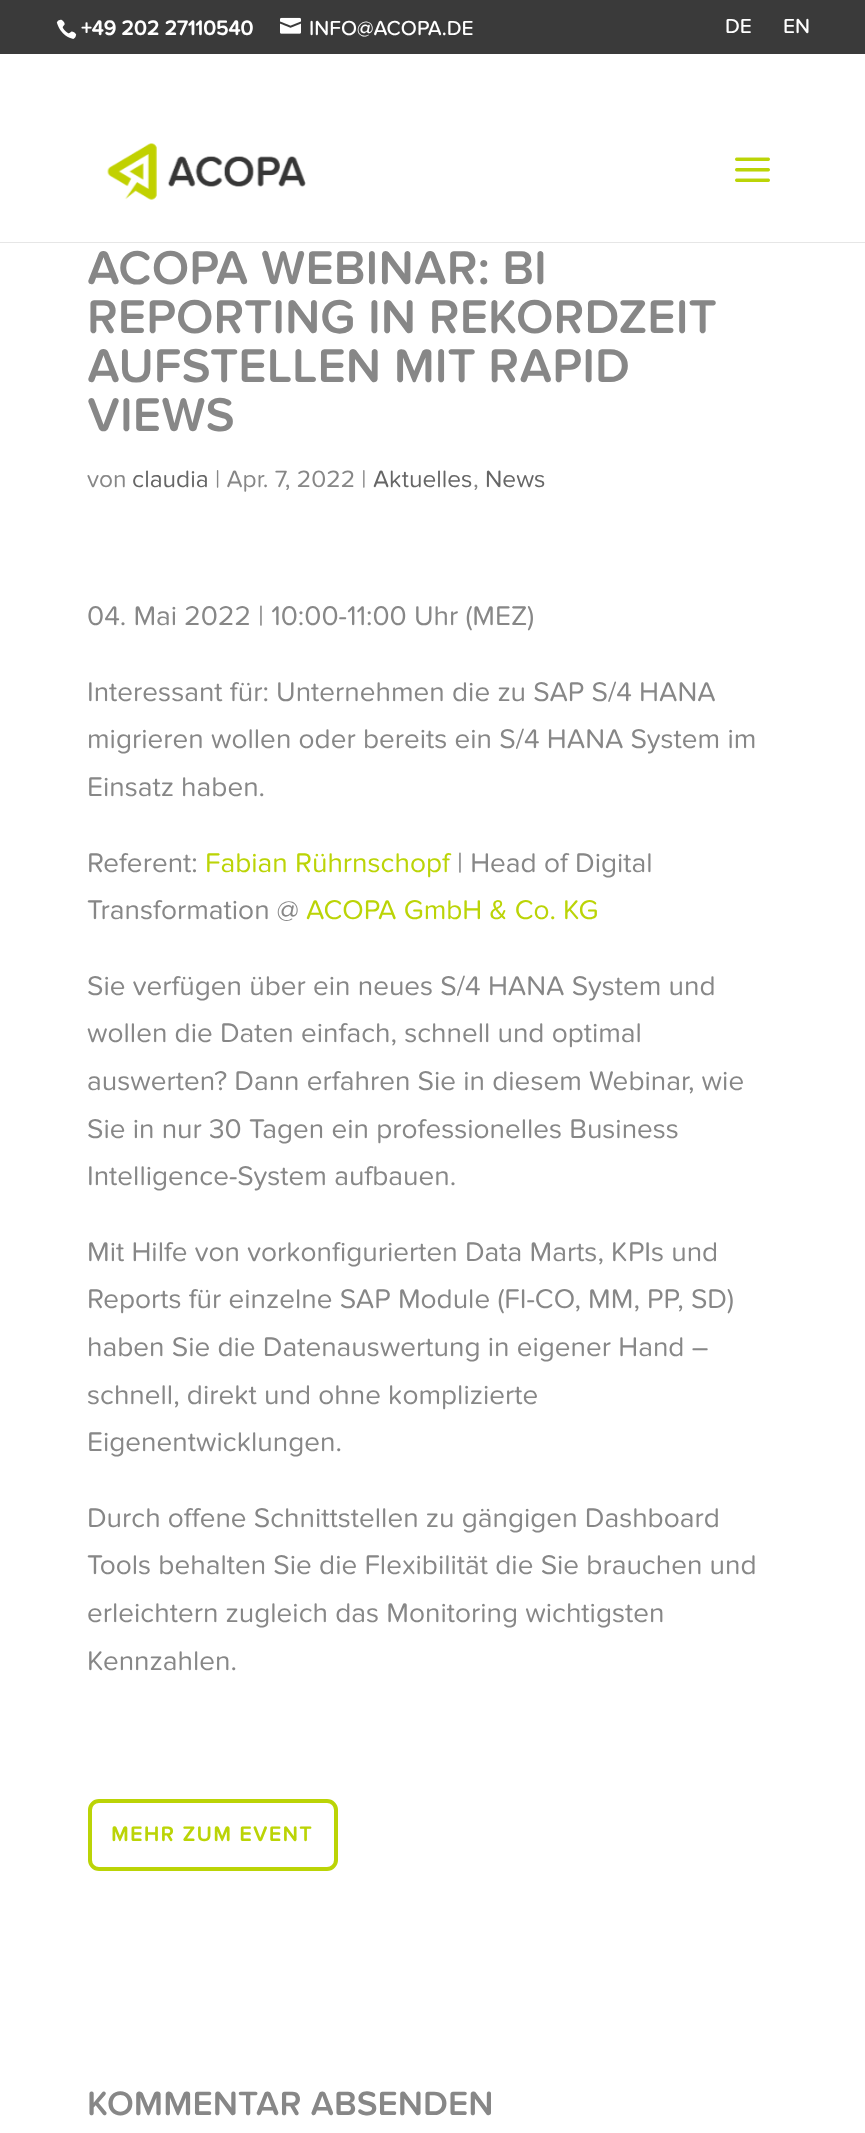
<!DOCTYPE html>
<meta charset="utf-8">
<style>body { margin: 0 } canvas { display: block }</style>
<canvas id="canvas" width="865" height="2133"></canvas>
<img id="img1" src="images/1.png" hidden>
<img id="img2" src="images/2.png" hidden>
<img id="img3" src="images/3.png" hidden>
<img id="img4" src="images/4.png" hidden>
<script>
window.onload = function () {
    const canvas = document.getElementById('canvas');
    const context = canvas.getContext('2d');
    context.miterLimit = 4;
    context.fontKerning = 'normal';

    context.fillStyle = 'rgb(255, 255, 255)';
    context.fillRect(0, 0, 865, 2133);
    context.fillStyle = 'rgb(58, 58, 58)';
    context.fillRect(0, 0, 865, 54);
    context.drawImage(document.getElementById('img1'), 56, 19, 21, 20);
    context.drawImage(document.getElementById('img2'), 280, 17, 21, 17);
    context.fillStyle = 'rgb(230, 230, 230)';
    context.fillRect(0, 242, 865, 1);
    context.drawImage(document.getElementById('img3'), 107, 143, 199, 57);
    context.drawImage(document.getElementById('img4'), 735, 157, 35, 25);
    context.beginPath();
    context.roundRect(90, 1801, 246, 68, 9);
    context.strokeStyle = 'rgb(187, 212, 6)';
    context.lineWidth = 4;
    context.stroke();
    context.font = 'bold 21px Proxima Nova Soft';
    context.fillStyle = 'rgb(255, 255, 255)';
    context.fillText('+49 202 27110540', 81, 35);
    context.font = '500 21px Proxima Nova Soft';
    context.fillText('INFO@ACOPA.DE', 309, 35);
    context.fillText('DE', 725, 33);
    context.fillText('EN', 783, 33);
    context.font = '600 49px Proxima Nova Soft';
    context.fillStyle = 'rgb(135, 135, 135)';
    context.fillText('ACOPA WEBINAR: BI', 87, 284);
    context.fillText('REPORTING IN REKORDZEIT', 87, 333);
    context.fillText('AUFSTELLEN MIT RAPID', 87, 382);
    context.fillText('VIEWS', 87, 431);
    context.font = '24.5px Proxima Nova Soft';
    context.fillText('von', 87, 487);
    context.fillStyle = 'rgb(102, 102, 102)';
    context.fillText('claudia', 132, 487);
    context.fillStyle = 'rgb(135, 135, 135)';
    context.fillText('| Apr. 7, 2022 |', 215, 487);
    context.fillStyle = 'rgb(102, 102, 102)';
    context.fillText('Aktuelles', 373, 487);
    context.fillStyle = 'rgb(135, 135, 135)';
    context.fillText(',', 473, 487);
    context.fillStyle = 'rgb(102, 102, 102)';
    context.fillText('News', 485, 487);
    context.font = '28px Proxima Nova Soft';
    context.fillStyle = 'rgb(135, 135, 135)';
    context.fillText('04. Mai 2022 | 10:00-11:00 Uhr (MEZ)', 87, 625);
    context.fillText('Interessant für: Unternehmen die zu SAP S/4 HANA', 87, 701);
    context.fillText('migrieren wollen oder bereits ein S/4 HANA System im', 87, 748);
    context.fillText('Einsatz haben.', 87, 796);
    context.fillText('Referent:', 87, 872);
    context.fillStyle = 'rgb(187, 212, 6)';
    context.fillText('Fabian Rührnschopf', 205, 872);
    context.fillStyle = 'rgb(135, 135, 135)';
    context.fillText('| Head of Digital', 457, 872);
    context.fillText('Transformation @', 87, 919);
    context.fillStyle = 'rgb(187, 212, 6)';
    context.fillText('ACOPA GmbH & Co. KG', 306, 919);
    context.fillStyle = 'rgb(135, 135, 135)';
    context.fillText('Sie verfügen über ein neues S/4 HANA System und', 87, 995);
    context.fillText('wollen die Daten einfach, schnell und optimal', 87, 1042);
    context.fillText('auswerten? Dann erfahren Sie in diesem Webinar, wie', 87, 1090);
    context.fillText('Sie in nur 30 Tagen ein professionelles Business', 87, 1138);
    context.fillText('Intelligence-System aufbauen.', 87, 1185);
    context.fillText('Mit Hilfe von vorkonfigurierten Data Marts, KPIs und', 87, 1261);
    context.fillText('Reports für einzelne SAP Module (FI-CO, MM, PP, SD)', 87, 1308);
    context.fillText('haben Sie die Datenauswertung in eigener Hand –', 87, 1356);
    context.fillText('schnell, direkt und ohne komplizierte', 87, 1404);
    context.fillText('Eigenentwicklungen.', 87, 1451);
    context.fillText('Durch offene Schnittstellen zu gängigen Dashboard', 87, 1527);
    context.fillText('Tools behalten Sie die Flexibilität die Sie brauchen und', 87, 1574);
    context.fillText('erleichtern zugleich das Monitoring wichtigsten', 87, 1622);
    context.fillText('Kennzahlen.', 87, 1670);
    context.letterSpacing = '1.75px';
    context.font = 'bold 21px Proxima Nova Soft';
    context.fillStyle = 'rgb(187, 212, 6)';
    context.fillText('MEHR ZUM EVENT', 111, 1841);
    context.letterSpacing = '0px';
    context.font = '600 35px Proxima Nova Soft';
    context.fillStyle = 'rgb(135, 135, 135)';
    context.fillText('KOMMENTAR ABSENDEN', 87, 2115);
};
</script>
